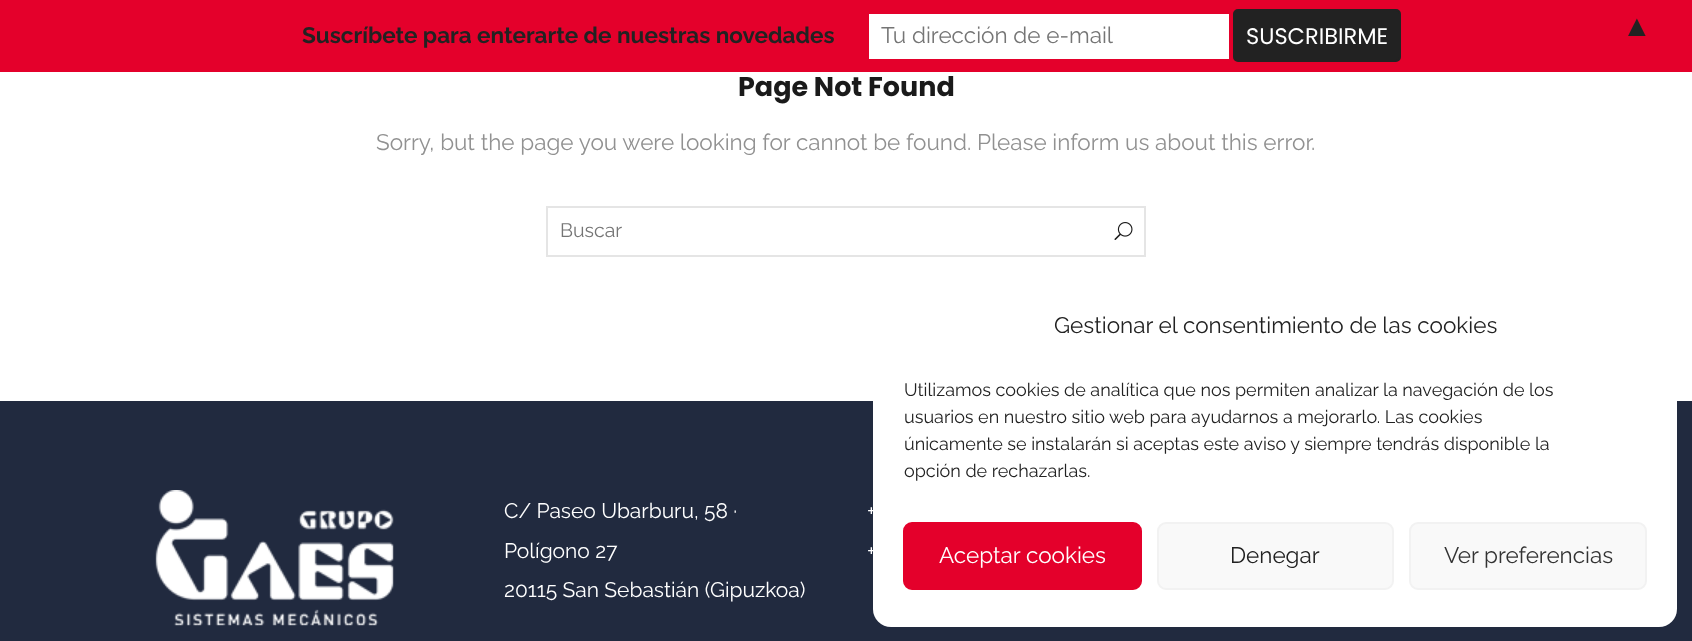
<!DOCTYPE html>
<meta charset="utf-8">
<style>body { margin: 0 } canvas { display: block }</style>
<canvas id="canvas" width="1692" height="641"></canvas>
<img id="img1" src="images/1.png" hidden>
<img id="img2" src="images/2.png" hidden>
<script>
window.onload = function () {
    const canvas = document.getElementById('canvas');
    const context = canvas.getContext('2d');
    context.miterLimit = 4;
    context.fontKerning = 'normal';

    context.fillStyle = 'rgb(255, 255, 255)';
    context.fillRect(0, 0, 1692, 641);
    context.fillStyle = 'rgb(228, 0, 43)';
    context.fillRect(0, 0, 1692, 72);
    context.fillStyle = 'rgb(255, 255, 255)';
    context.fillRect(869, 14, 360, 45);
    context.fillStyle = 'rgb(34, 34, 34)';
    context.beginPath();
    context.roundRect(1234, 10, 166, 51, 4);
    context.fill();
    context.strokeStyle = 'rgb(34, 34, 34)';
    context.lineWidth = 2;
    context.stroke();
    context.strokeStyle = 'rgb(229, 229, 229)';
    context.strokeRect(547, 207, 598, 49);
    context.drawImage(document.getElementById('img1'), 1114, 222, 19, 18);
    context.fillStyle = 'rgb(33, 42, 63)';
    context.fillRect(0, 401, 1692, 240);
    context.drawImage(document.getElementById('img2'), 155, 490, 239, 136);
    context.fillStyle = 'rgb(255, 255, 255)';
    context.beginPath();
    context.roundRect(873, 282, 804, 345, 18);
    context.fill();
    context.fillStyle = 'rgb(228, 0, 43)';
    context.beginPath();
    context.roundRect(904, 523, 237, 66, 8);
    context.fill();
    context.strokeStyle = 'rgb(228, 0, 43)';
    context.stroke();
    context.fillStyle = 'rgb(249, 249, 249)';
    context.beginPath();
    context.roundRect(1158, 523, 235, 66, 8);
    context.fill();
    context.strokeStyle = 'rgb(242, 242, 242)';
    context.stroke();
    context.beginPath();
    context.roundRect(1410, 523, 236, 66, 8);
    context.fill();
    context.stroke();
    context.font = 'bold 22.5px Raleway';
    context.fillStyle = 'rgb(34, 34, 34)';
    context.fillText('Suscríbete para enterarte de nuestras novedades', 302, 43);
    context.font = '22.5px Raleway';
    context.fillStyle = 'rgb(117, 117, 117)';
    context.fillText('Tu dirección de e-mail', 881, 43);
    context.font = '22.5px Poppins';
    context.fillStyle = 'rgb(255, 255, 255)';
    context.fillText('SUSCRIBIRME', 1246, 44);
    context.font = '30px Liberation Sans';
    context.fillStyle = 'rgb(34, 34, 34)';
    context.fillText('▲', 1622, 36);
    context.font = 'bold 27px Poppins';
    context.fillStyle = 'rgb(26, 26, 26)';
    context.fillText('Page Not Found', 738, 96);
    context.font = '22.5px Raleway';
    context.fillStyle = 'rgb(145, 145, 145)';
    context.fillText('Sorry, but the page you were looking for cannot be found. Please inform us about this error.', 376, 150);
    context.font = '19.5px Raleway';
    context.fillStyle = 'rgb(117, 117, 117)';
    context.fillText('Buscar', 560, 237);
    context.font = '21px Raleway';
    context.fillStyle = 'rgb(255, 255, 255)';
    context.fillText('C/ Paseo Ubarburu, 58 ·', 504, 518);
    context.fillText('Polígono 27', 504, 558);
    context.fillText('20115 San Sebastián (Gipuzkoa)', 504, 597);
    context.fillText('+', 867, 518);
    context.fillText('+', 867, 558);
    context.font = '22.5px Raleway';
    context.fillStyle = 'rgb(34, 34, 34)';
    context.fillText('Gestionar el consentimiento de las cookies', 1054, 333);
    context.font = '18px Raleway';
    context.fillText('Utilizamos cookies de analítica que nos permiten analizar la navegación de los', 904, 396);
    context.fillText('usuarios en nuestro sitio web para ayudarnos a mejorarlo. Las cookies', 904, 423);
    context.fillText('únicamente se instalarán si aceptas este aviso y siempre tendrás disponible la', 904, 450);
    context.fillText('opción de rechazarlas.', 904, 477);
    context.font = '22.5px Raleway';
    context.fillStyle = 'rgb(255, 255, 255)';
    context.fillText('Aceptar cookies', 939, 563);
    context.fillStyle = 'rgb(34, 34, 34)';
    context.fillText('Denegar', 1230, 563);
    context.fillStyle = 'rgb(51, 51, 51)';
    context.fillText('Ver preferencias', 1444, 563);
};
</script>
